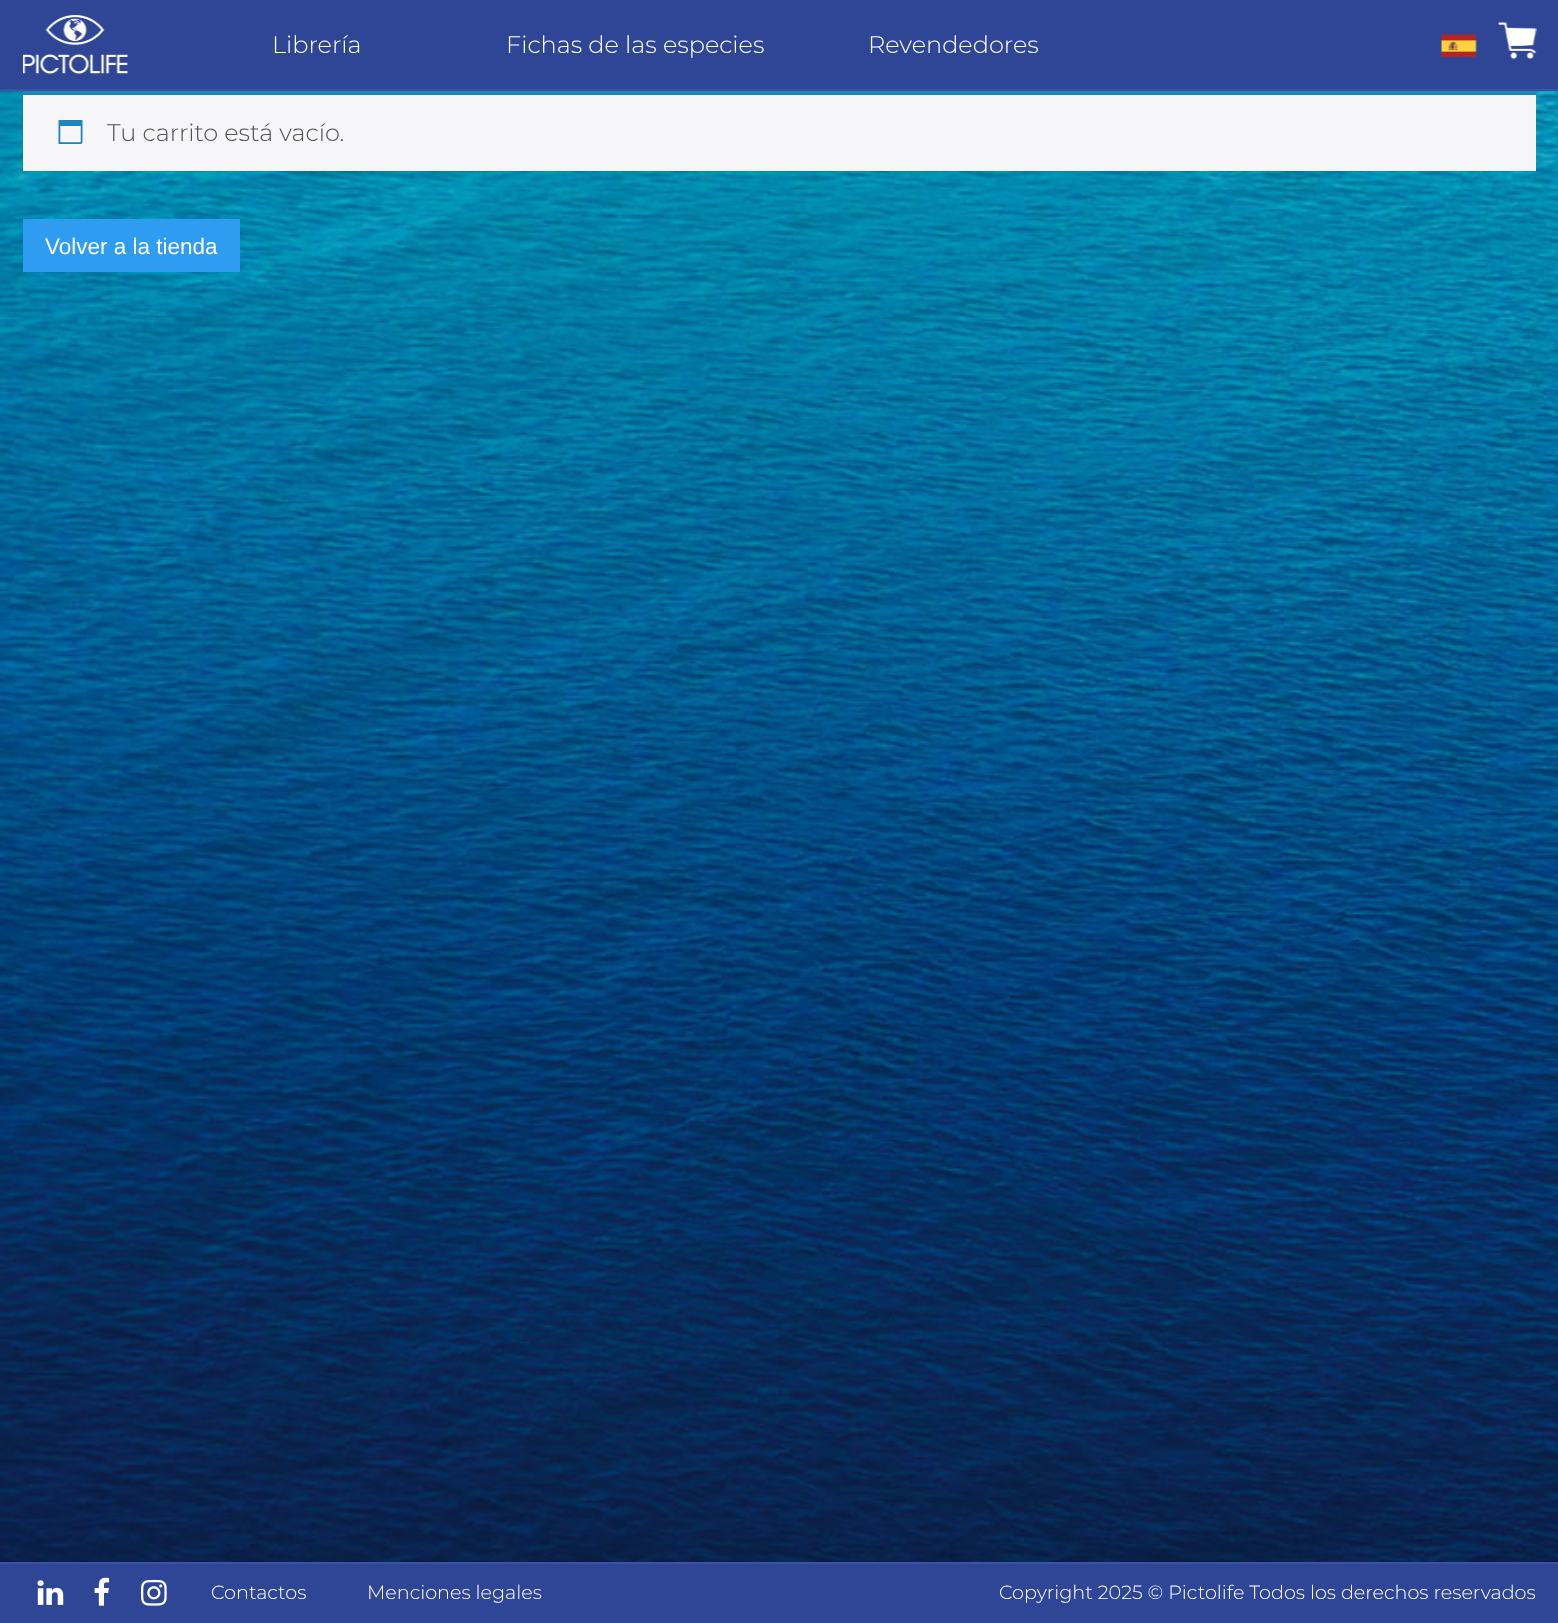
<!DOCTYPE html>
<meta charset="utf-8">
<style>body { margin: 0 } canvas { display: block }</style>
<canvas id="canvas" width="1558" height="1623"></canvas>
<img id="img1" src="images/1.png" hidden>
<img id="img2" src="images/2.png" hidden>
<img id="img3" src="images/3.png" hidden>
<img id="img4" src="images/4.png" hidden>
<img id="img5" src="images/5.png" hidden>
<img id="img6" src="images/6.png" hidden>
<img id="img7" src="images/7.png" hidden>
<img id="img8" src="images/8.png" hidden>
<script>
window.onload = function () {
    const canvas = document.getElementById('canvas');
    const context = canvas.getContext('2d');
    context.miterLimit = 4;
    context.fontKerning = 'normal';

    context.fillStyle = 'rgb(255, 255, 255)';
    context.fillRect(0, 0, 1558, 1623);
    context.drawImage(document.getElementById('img1'), 0, 91, 1558, 1471);
    context.fillStyle = 'rgb(47, 70, 150)';
    context.fillRect(0, 0, 1558, 89);
    context.fillStyle = 'rgb(58, 82, 163)';
    context.fillRect(0, 89, 1558, 2);
    context.drawImage(document.getElementById('img2'), 23, 15, 105, 59);
    context.drawImage(document.getElementById('img3'), 1441, 34, 36, 23);
    context.drawImage(document.getElementById('img4'), 1498, 22, 39, 37);
    context.fillStyle = 'rgb(246, 245, 248)';
    context.fillRect(23, 95, 1513, 76);
    context.fillStyle = 'rgb(30, 133, 190)';
    context.fillRect(23, 91, 1513, 4);
    context.drawImage(document.getElementById('img5'), 58, 120, 25, 24);
    context.fillStyle = 'rgb(45, 156, 241)';
    context.fillRect(23, 219, 217, 53);
    context.fillStyle = 'rgb(47, 70, 150)';
    context.fillRect(0, 1564, 1558, 59);
    context.fillStyle = 'rgb(58, 82, 163)';
    context.fillRect(0, 1562, 1558, 2);
    context.drawImage(document.getElementById('img6'), 37, 1580, 27, 25);
    context.drawImage(document.getElementById('img7'), 94, 1577, 16, 29);
    context.drawImage(document.getElementById('img8'), 141, 1579, 26, 27);
    context.font = '300 24px Montserrat';
    context.fillStyle = 'rgb(255, 255, 255)';
    context.fillText('Librería', 272, 53);
    context.fillText('Fichas de las especies', 506, 53);
    context.fillText('Revendedores', 868, 53);
    context.fillStyle = 'rgb(81, 81, 81)';
    context.fillText('Tu carrito está vacío.', 107, 141);
    context.font = '22.5px Liberation Sans';
    context.fillStyle = 'rgb(255, 255, 255)';
    context.fillText('Volver a la tienda', 45, 254);
    context.font = '300 19.2px Montserrat';
    context.fillText('Contactos', 211, 1599);
    context.fillText('Menciones legales', 367, 1599);
    context.fillText('Copyright 2025 © Pictolife Todos los derechos reservados', 999, 1599);
};
</script>
